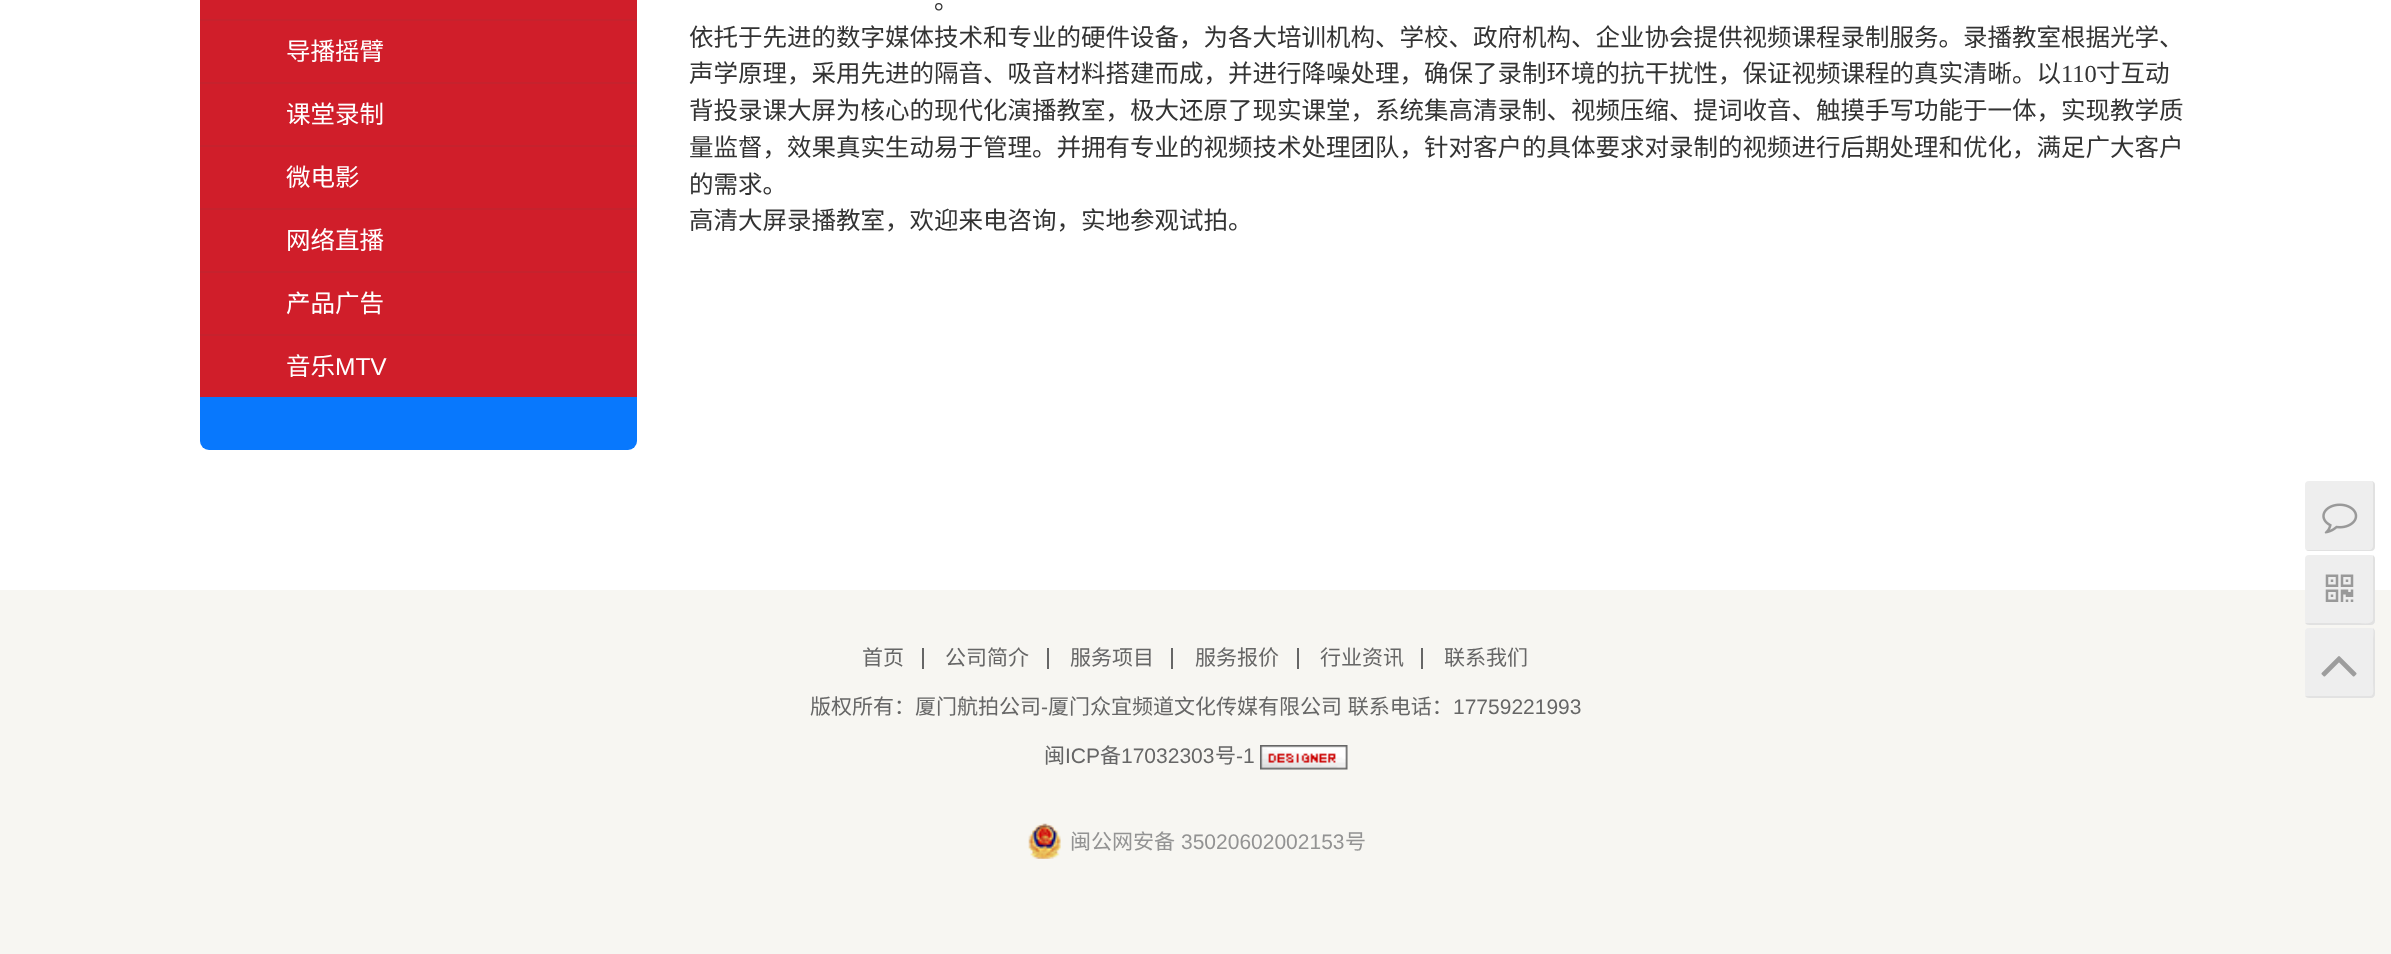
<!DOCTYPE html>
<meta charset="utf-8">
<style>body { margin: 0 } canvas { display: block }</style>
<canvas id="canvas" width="2391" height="954"></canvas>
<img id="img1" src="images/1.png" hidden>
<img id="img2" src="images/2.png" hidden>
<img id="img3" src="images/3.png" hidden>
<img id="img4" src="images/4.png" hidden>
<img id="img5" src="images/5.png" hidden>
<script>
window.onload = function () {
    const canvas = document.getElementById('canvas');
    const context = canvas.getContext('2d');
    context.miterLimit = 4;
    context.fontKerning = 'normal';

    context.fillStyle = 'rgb(255, 255, 255)';
    context.fillRect(0, 0, 2391, 954);
    context.fillStyle = 'rgb(8, 120, 253)';
    context.beginPath();
    context.roundRect(200, -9, 437, 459, 9);
    context.fill();
    context.fillStyle = 'rgb(208, 30, 42)';
    context.fillRect(200, 0, 437, 19);
    context.fillRect(200, 21, 437, 61);
    context.fillStyle = 'rgb(198, 34, 45)';
    context.fillRect(200, 19, 437, 2);
    context.fillStyle = 'rgb(208, 30, 42)';
    context.fillRect(200, 84, 437, 61);
    context.fillStyle = 'rgb(198, 34, 45)';
    context.fillRect(200, 82, 437, 2);
    context.fillStyle = 'rgb(208, 30, 42)';
    context.fillRect(200, 147, 437, 61);
    context.fillStyle = 'rgb(198, 34, 45)';
    context.fillRect(200, 145, 437, 2);
    context.fillStyle = 'rgb(208, 30, 42)';
    context.fillRect(200, 210, 437, 61);
    context.fillStyle = 'rgb(198, 34, 45)';
    context.fillRect(200, 208, 437, 2);
    context.fillStyle = 'rgb(208, 30, 42)';
    context.fillRect(200, 273, 437, 61);
    context.fillStyle = 'rgb(198, 34, 45)';
    context.fillRect(200, 271, 437, 2);
    context.fillStyle = 'rgb(208, 30, 42)';
    context.fillRect(200, 336, 437, 61);
    context.fillStyle = 'rgb(198, 34, 45)';
    context.fillRect(200, 334, 437, 2);
    context.fillStyle = 'rgb(238, 238, 238)';
    context.beginPath();
    context.roundRect(2305, 481, 70, 70, 4);
    context.fill();
    context.fillStyle = 'rgba(0, 0, 0, 0.05)';
    context.beginPath();
    context.moveTo(2306, 550);
    context.bezierCurveTo(2307, 551, 2308, 551, 2309, 551);
    context.lineTo(2371, 551);
    context.bezierCurveTo(2373, 551, 2375, 549, 2375, 547);
    context.lineTo(2375, 485);
    context.bezierCurveTo(2375, 483, 2374, 482, 2372, 481);
    context.lineTo(2373, 483);
    context.lineTo(2373, 546);
    context.bezierCurveTo(2373, 548, 2371, 550, 2370, 550);
    context.closePath();
    context.fill();
    context.drawImage(document.getElementById('img1'), 2322, 503, 36, 31);
    context.fillStyle = 'rgb(247, 246, 242)';
    context.fillRect(0, 590, 2391, 364);
    context.fillStyle = 'rgb(238, 238, 238)';
    context.beginPath();
    context.roundRect(2305, 555, 70, 70, 4);
    context.fill();
    context.fillStyle = 'rgba(0, 0, 0, 0.05)';
    context.beginPath();
    context.moveTo(2305, 623);
    context.bezierCurveTo(2306, 624, 2307, 625, 2309, 625);
    context.lineTo(2371, 625);
    context.bezierCurveTo(2373, 625, 2375, 623, 2375, 621);
    context.lineTo(2375, 559);
    context.bezierCurveTo(2375, 557, 2374, 556, 2373, 555);
    context.lineTo(2373, 620);
    context.bezierCurveTo(2371, 625, 2362, 623, 2359, 623);
    context.closePath();
    context.fill();
    context.drawImage(document.getElementById('img2'), 2325, 574, 29, 28);
    context.fillStyle = 'rgb(238, 238, 238)';
    context.beginPath();
    context.roundRect(2305, 628, 70, 70, 4);
    context.fill();
    context.fillStyle = 'rgba(10, 10, 10, 0.05)';
    context.beginPath();
    context.moveTo(2305, 696);
    context.bezierCurveTo(2306, 697, 2307, 698, 2309, 698);
    context.lineTo(2371, 698);
    context.bezierCurveTo(2373, 698, 2375, 696, 2375, 694);
    context.lineTo(2375, 632);
    context.bezierCurveTo(2375, 630, 2374, 629, 2373, 628);
    context.bezierCurveTo(2374, 632, 2373, 636, 2373, 640);
    context.lineTo(2373, 682);
    context.bezierCurveTo(2373, 688, 2375, 696, 2370, 696);
    context.closePath();
    context.fill();
    context.drawImage(document.getElementById('img3'), 2321, 656, 36, 21);
    context.fillStyle = 'rgb(102, 102, 102)';
    context.fillRect(922, 648, 2, 21);
    context.fillRect(1047, 648, 2, 21);
    context.fillRect(1171, 648, 2, 21);
    context.fillRect(1297, 648, 2, 21);
    context.fillRect(1421, 648, 2, 21);
    context.drawImage(document.getElementById('img4'), 1260, 745, 88, 25);
    context.drawImage(document.getElementById('img5'), 1028, 823, 33, 36);
    context.font = '24.5px Noto Sans CJK SC';
    context.fillStyle = 'rgb(255, 255, 255)';
    context.fillText('导播摇臂', 286, 60);
    context.fillText('课堂录制', 286, 123);
    context.fillText('微电影', 286, 186);
    context.fillText('网络直播', 286, 249);
    context.fillText('产品广告', 286, 312);
    context.fillText('音乐', 286, 375);
    context.font = '24.5px Liberation Sans';
    context.fillText('MTV', 335, 375);
    context.font = '24.5px Noto Sans CJK SC';
    context.fillStyle = 'rgb(51, 51, 51)';
    context.fillText('。', 934, 9);
    context.fillText('依托于先进的数字媒体技术和专业的硬件设备，为各大培训机构、学校、政府机构、企业协会提供视频课程录制服务。录播教室根据光学、', 689, 46);
    context.fillText('声学原理，采用先进的隔音、吸音材料搭建而成，并进行降噪处理，确保了录制环境的抗干扰性，保证视频课程的真实清晰。以', 689, 82);
    context.font = '24.5px Liberation Serif';
    context.fillText('110', 2061, 82);
    context.font = '24.5px Noto Sans CJK SC';
    context.fillText('寸互动', 2096, 82);
    context.fillText('背投录课大屏为核心的现代化演播教室，极大还原了现实课堂，系统集高清录制、视频压缩、提词收音、触摸手写功能于一体，实现教学质', 689, 119);
    context.fillText('量监督，效果真实生动易于管理。并拥有专业的视频技术处理团队，针对客户的具体要求对录制的视频进行后期处理和优化，满足广大客户', 689, 156);
    context.fillText('的需求。', 689, 193);
    context.fillText('高清大屏录播教室，欢迎来电咨询，实地参观试拍。', 689, 229);
    context.font = '21px Noto Sans CJK SC';
    context.fillStyle = 'rgb(102, 102, 102)';
    context.fillText('首页', 862, 665);
    context.fillText('公司简介', 945, 665);
    context.fillText('服务项目', 1070, 665);
    context.fillText('服务报价', 1195, 665);
    context.fillText('行业资讯', 1320, 665);
    context.fillText('联系我们', 1444, 665);
    context.fillText('版权所有：厦门航拍公司', 810, 714);
    context.font = '21px Liberation Sans';
    context.fillText('-', 1041, 714);
    context.wordSpacing = '1px';
    context.font = '21px Noto Sans CJK SC';
    context.fillText('厦门众宜频道文化传媒有限公司 联系电话：', 1048, 714);
    context.wordSpacing = '0px';
    context.font = '21px Liberation Sans';
    context.fillText('17759221993', 1453, 714);
    context.font = '21px Noto Sans CJK SC';
    context.fillText('闽', 1044, 763);
    context.font = '21px Liberation Sans';
    context.fillText('ICP', 1065, 763);
    context.font = '21px Noto Sans CJK SC';
    context.fillText('备', 1100, 763);
    context.font = '21px Liberation Sans';
    context.fillText('17032303', 1121, 763);
    context.font = '21px Noto Sans CJK SC';
    context.fillText('号', 1215, 763);
    context.font = '21px Liberation Sans';
    context.fillText('-1', 1236, 763);
    context.font = '21px Noto Sans CJK SC';
    context.fillStyle = 'rgb(147, 147, 147)';
    context.fillText('闽公网安备', 1070, 849);
    context.font = '21px Liberation Sans';
    context.fillText('35020602002153', 1181, 849);
    context.font = '21px Noto Sans CJK SC';
    context.fillText('号', 1345, 849);
};
</script>
